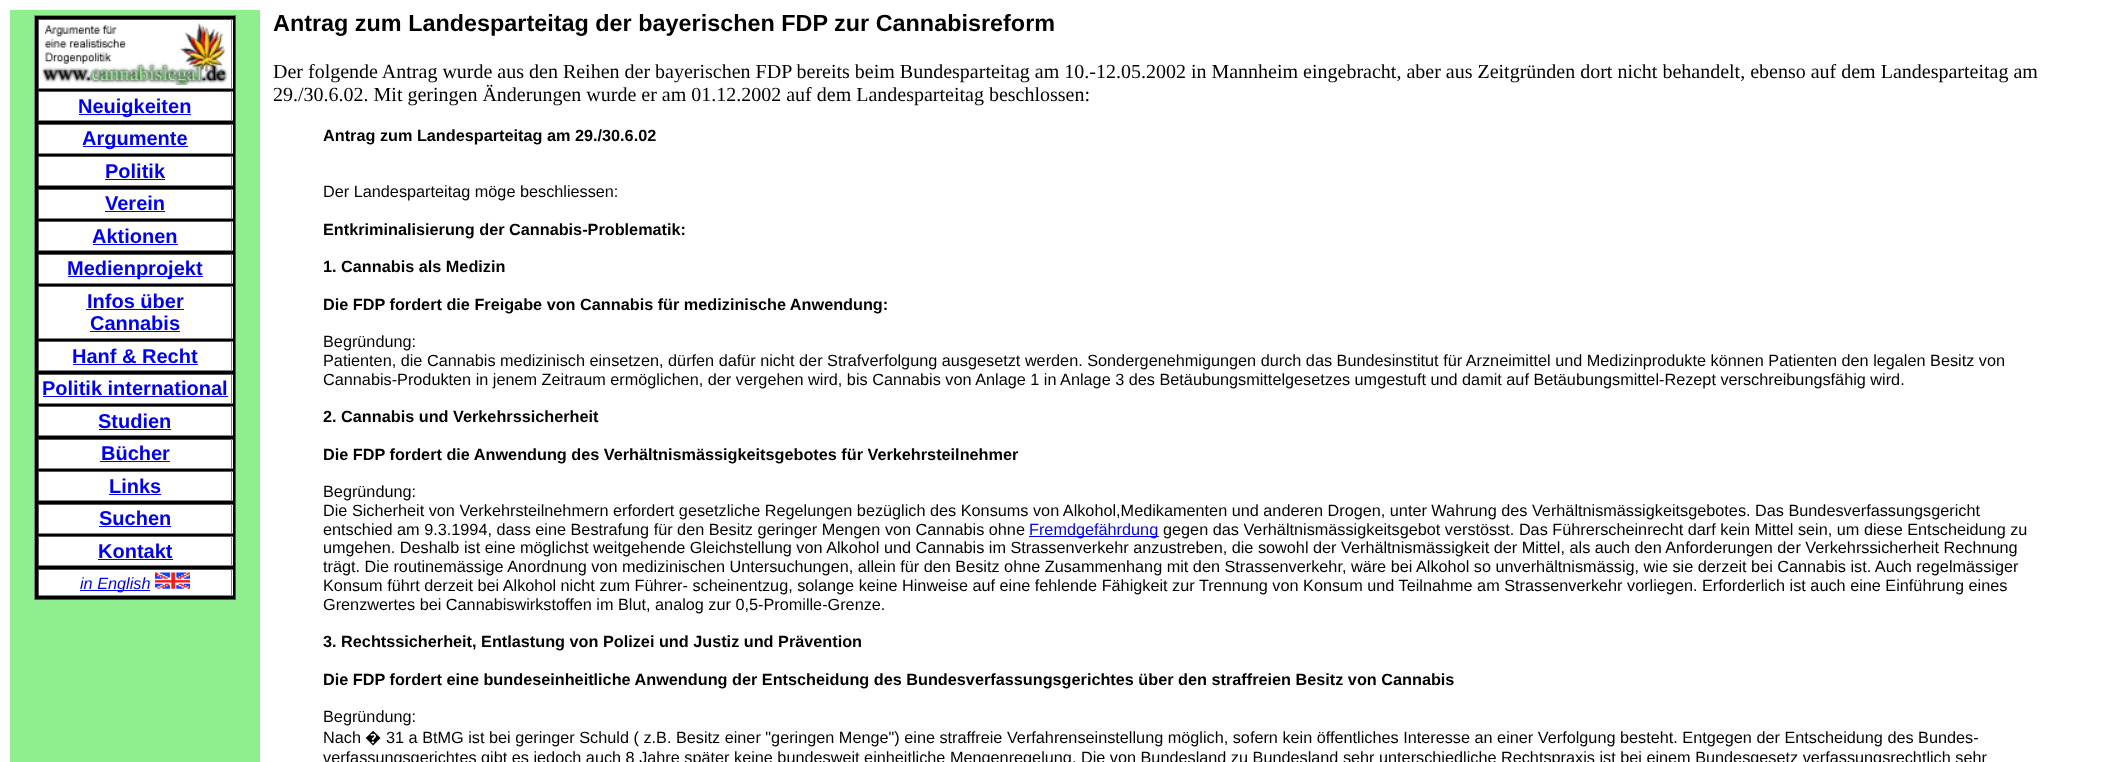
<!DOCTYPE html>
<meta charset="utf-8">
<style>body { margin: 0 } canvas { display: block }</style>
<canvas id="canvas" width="2105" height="762"></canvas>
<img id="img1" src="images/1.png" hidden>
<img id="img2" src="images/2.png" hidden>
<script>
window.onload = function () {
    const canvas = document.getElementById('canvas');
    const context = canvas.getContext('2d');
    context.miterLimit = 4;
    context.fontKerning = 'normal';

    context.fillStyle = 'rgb(255, 255, 255)';
    context.fillRect(0, 0, 2105, 762);
    context.fillStyle = 'rgb(143, 239, 143)';
    context.fillRect(10, 10, 250, 752);
    context.fillStyle = 'rgb(0, 0, 0)';
    context.fillRect(35, 16, 200, 583);
    context.fillStyle = 'rgb(128, 128, 128)';
    context.fillRect(34, 15, 202, 1);
    context.fillStyle = 'rgb(85, 85, 85)';
    context.fillRect(235, 15, 1, 585);
    context.fillRect(34, 599, 202, 1);
    context.fillStyle = 'rgb(128, 128, 128)';
    context.fillRect(34, 15, 1, 585);
    context.fillStyle = 'rgb(255, 255, 255)';
    context.fillRect(39, 20, 194, 68);
    context.fillStyle = 'rgb(85, 85, 85)';
    context.fillRect(38, 19, 195, 1);
    context.fillStyle = 'rgb(128, 128, 128)';
    context.fillRect(231, 19, 1, 70);
    context.fillRect(38, 88, 195, 1);
    context.fillStyle = 'rgb(85, 85, 85)';
    context.fillRect(38, 19, 1, 70);
    context.drawImage(document.getElementById('img1'), 42, 23, 186, 62);
    context.fillStyle = 'rgb(255, 255, 255)';
    context.fillRect(39, 92, 194, 28);
    context.fillStyle = 'rgb(85, 85, 85)';
    context.fillRect(38, 91, 195, 1);
    context.fillStyle = 'rgb(128, 128, 128)';
    context.fillRect(231, 91, 1, 30);
    context.fillRect(38, 120, 195, 1);
    context.fillStyle = 'rgb(85, 85, 85)';
    context.fillRect(38, 91, 1, 30);
    context.fillStyle = 'rgb(0, 0, 238)';
    context.fillRect(79, 114, 112, 1);
    context.fillStyle = 'rgb(255, 255, 255)';
    context.fillRect(39, 125, 194, 28);
    context.fillStyle = 'rgb(85, 85, 85)';
    context.fillRect(38, 124, 195, 1);
    context.fillStyle = 'rgb(128, 128, 128)';
    context.fillRect(231, 124, 1, 30);
    context.fillRect(38, 153, 195, 1);
    context.fillStyle = 'rgb(85, 85, 85)';
    context.fillRect(38, 124, 1, 30);
    context.fillStyle = 'rgb(0, 0, 238)';
    context.fillRect(83, 146, 105, 1);
    context.fillStyle = 'rgb(255, 255, 255)';
    context.fillRect(39, 157, 194, 28);
    context.fillStyle = 'rgb(85, 85, 85)';
    context.fillRect(38, 156, 195, 1);
    context.fillStyle = 'rgb(128, 128, 128)';
    context.fillRect(231, 156, 1, 30);
    context.fillRect(38, 185, 195, 1);
    context.fillStyle = 'rgb(85, 85, 85)';
    context.fillRect(38, 156, 1, 30);
    context.fillStyle = 'rgb(0, 0, 238)';
    context.fillRect(105, 179, 60, 1);
    context.fillStyle = 'rgb(255, 255, 255)';
    context.fillRect(39, 190, 194, 28);
    context.fillStyle = 'rgb(85, 85, 85)';
    context.fillRect(38, 189, 195, 1);
    context.fillStyle = 'rgb(128, 128, 128)';
    context.fillRect(231, 189, 1, 30);
    context.fillRect(38, 218, 195, 1);
    context.fillStyle = 'rgb(85, 85, 85)';
    context.fillRect(38, 189, 1, 30);
    context.fillStyle = 'rgb(0, 0, 238)';
    context.fillRect(105, 211, 60, 1);
    context.fillStyle = 'rgb(255, 255, 255)';
    context.fillRect(39, 222, 194, 28);
    context.fillStyle = 'rgb(85, 85, 85)';
    context.fillRect(38, 221, 195, 1);
    context.fillStyle = 'rgb(128, 128, 128)';
    context.fillRect(231, 221, 1, 30);
    context.fillRect(38, 250, 195, 1);
    context.fillStyle = 'rgb(85, 85, 85)';
    context.fillRect(38, 221, 1, 30);
    context.fillStyle = 'rgb(0, 0, 238)';
    context.fillRect(93, 244, 85, 1);
    context.fillStyle = 'rgb(255, 255, 255)';
    context.fillRect(39, 255, 194, 28);
    context.fillStyle = 'rgb(85, 85, 85)';
    context.fillRect(38, 254, 195, 1);
    context.fillStyle = 'rgb(128, 128, 128)';
    context.fillRect(231, 254, 1, 30);
    context.fillRect(38, 283, 195, 1);
    context.fillStyle = 'rgb(85, 85, 85)';
    context.fillRect(38, 254, 1, 30);
    context.fillStyle = 'rgb(0, 0, 238)';
    context.fillRect(68, 276, 135, 1);
    context.fillStyle = 'rgb(255, 255, 255)';
    context.fillRect(39, 287, 194, 51);
    context.fillStyle = 'rgb(85, 85, 85)';
    context.fillRect(38, 286, 195, 1);
    context.fillStyle = 'rgb(128, 128, 128)';
    context.fillRect(231, 286, 1, 53);
    context.fillRect(38, 338, 195, 1);
    context.fillStyle = 'rgb(85, 85, 85)';
    context.fillRect(38, 286, 1, 53);
    context.fillStyle = 'rgb(0, 0, 238)';
    context.fillRect(86, 309, 98, 1);
    context.fillRect(90, 331, 90, 1);
    context.fillStyle = 'rgb(255, 255, 255)';
    context.fillRect(39, 342, 194, 28);
    context.fillStyle = 'rgb(85, 85, 85)';
    context.fillRect(38, 341, 195, 1);
    context.fillStyle = 'rgb(128, 128, 128)';
    context.fillRect(231, 341, 1, 30);
    context.fillRect(38, 370, 195, 1);
    context.fillStyle = 'rgb(85, 85, 85)';
    context.fillRect(38, 341, 1, 30);
    context.fillStyle = 'rgb(0, 0, 238)';
    context.fillRect(73, 364, 125, 1);
    context.fillStyle = 'rgb(255, 255, 255)';
    context.fillRect(39, 375, 194, 28);
    context.fillStyle = 'rgb(85, 85, 85)';
    context.fillRect(38, 374, 195, 1);
    context.fillStyle = 'rgb(128, 128, 128)';
    context.fillRect(231, 374, 1, 30);
    context.fillRect(38, 403, 195, 1);
    context.fillStyle = 'rgb(85, 85, 85)';
    context.fillRect(38, 374, 1, 30);
    context.fillStyle = 'rgb(0, 0, 238)';
    context.fillRect(43, 396, 185, 1);
    context.fillStyle = 'rgb(255, 255, 255)';
    context.fillRect(39, 407, 194, 28);
    context.fillStyle = 'rgb(85, 85, 85)';
    context.fillRect(38, 406, 195, 1);
    context.fillStyle = 'rgb(128, 128, 128)';
    context.fillRect(231, 406, 1, 30);
    context.fillRect(38, 435, 195, 1);
    context.fillStyle = 'rgb(85, 85, 85)';
    context.fillRect(38, 406, 1, 30);
    context.fillStyle = 'rgb(0, 0, 238)';
    context.fillRect(99, 429, 72, 1);
    context.fillStyle = 'rgb(255, 255, 255)';
    context.fillRect(39, 440, 194, 28);
    context.fillStyle = 'rgb(85, 85, 85)';
    context.fillRect(38, 439, 195, 1);
    context.fillStyle = 'rgb(128, 128, 128)';
    context.fillRect(231, 439, 1, 30);
    context.fillRect(38, 468, 195, 1);
    context.fillStyle = 'rgb(85, 85, 85)';
    context.fillRect(38, 439, 1, 30);
    context.fillStyle = 'rgb(0, 0, 238)';
    context.fillRect(100, 461, 70, 1);
    context.fillStyle = 'rgb(255, 255, 255)';
    context.fillRect(39, 472, 194, 28);
    context.fillStyle = 'rgb(85, 85, 85)';
    context.fillRect(38, 471, 195, 1);
    context.fillStyle = 'rgb(128, 128, 128)';
    context.fillRect(231, 471, 1, 30);
    context.fillRect(38, 500, 195, 1);
    context.fillStyle = 'rgb(85, 85, 85)';
    context.fillRect(38, 471, 1, 30);
    context.fillStyle = 'rgb(0, 0, 238)';
    context.fillRect(109, 494, 52, 1);
    context.fillStyle = 'rgb(255, 255, 255)';
    context.fillRect(39, 505, 194, 28);
    context.fillStyle = 'rgb(85, 85, 85)';
    context.fillRect(38, 504, 195, 1);
    context.fillStyle = 'rgb(128, 128, 128)';
    context.fillRect(231, 504, 1, 30);
    context.fillRect(38, 533, 195, 1);
    context.fillStyle = 'rgb(85, 85, 85)';
    context.fillRect(38, 504, 1, 30);
    context.fillStyle = 'rgb(0, 0, 238)';
    context.fillRect(99, 526, 72, 1);
    context.fillStyle = 'rgb(255, 255, 255)';
    context.fillRect(39, 537, 194, 28);
    context.fillStyle = 'rgb(85, 85, 85)';
    context.fillRect(38, 536, 195, 1);
    context.fillStyle = 'rgb(128, 128, 128)';
    context.fillRect(231, 536, 1, 30);
    context.fillRect(38, 565, 195, 1);
    context.fillStyle = 'rgb(85, 85, 85)';
    context.fillRect(38, 536, 1, 30);
    context.fillStyle = 'rgb(0, 0, 238)';
    context.fillRect(98, 559, 75, 1);
    context.fillStyle = 'rgb(255, 255, 255)';
    context.fillRect(39, 570, 194, 25);
    context.fillStyle = 'rgb(85, 85, 85)';
    context.fillRect(38, 569, 195, 1);
    context.fillStyle = 'rgb(128, 128, 128)';
    context.fillRect(231, 569, 1, 27);
    context.fillRect(38, 595, 195, 1);
    context.fillStyle = 'rgb(85, 85, 85)';
    context.fillRect(38, 569, 1, 27);
    context.fillStyle = 'rgb(0, 0, 238)';
    context.fillRect(80, 590, 70, 1);
    context.drawImage(document.getElementById('img2'), 155, 572, 35, 17);
    context.fillRect(1029, 536, 130, 1);
    context.font = 'bold 20px Liberation Sans';
    context.fillText('Neuigkeiten', 78, 113);
    context.fillText('Argumente', 82, 145);
    context.fillText('Politik', 105, 178);
    context.fillText('Verein', 105, 210);
    context.fillText('Aktionen', 92, 243);
    context.fillText('Medienprojekt', 67, 275);
    context.fillText('Infos über', 87, 308);
    context.fillText('Cannabis', 90, 330);
    context.fillText('Hanf & Recht', 72, 363);
    context.fillText('Politik international', 42, 395);
    context.fillText('Studien', 98, 428);
    context.fillText('Bücher', 101, 460);
    context.fillText('Links', 109, 493);
    context.fillText('Suchen', 99, 525);
    context.fillText('Kontakt', 98, 558);
    context.font = 'italic 16.25px Liberation Sans';
    context.fillText('in English', 80, 589);
    context.font = 'bold 23.4px Liberation Sans';
    context.fillStyle = 'rgb(0, 0, 0)';
    context.fillText('Antrag zum Landesparteitag der bayerischen FDP zur Cannabisreform', 273, 31);
    context.font = '20px Liberation Serif';
    context.fillText('Der folgende Antrag wurde aus den Reihen der bayerischen FDP bereits beim Bundesparteitag am 10.-12.05.2002 in Mannheim eingebracht, aber aus Zeitgründen dort nicht behandelt, ebenso auf dem Landesparteitag am', 273, 78);
    context.fillText('29./30.6.02. Mit geringen Änderungen wurde er am 01.12.2002 auf dem Landesparteitag beschlossen:', 273, 101);
    context.font = 'bold 16.25px Liberation Sans';
    context.fillText('Antrag zum Landesparteitag am 29./30.6.02', 323, 141);
    context.font = '16.25px Liberation Sans';
    context.fillText('Der Landesparteitag möge beschliessen:', 323, 197);
    context.font = 'bold 16.25px Liberation Sans';
    context.fillText('Entkriminalisierung der Cannabis-Problematik:', 323, 235);
    context.fillText('1. Cannabis als Medizin', 323, 272);
    context.fillText('Die FDP fordert die Freigabe von Cannabis für medizinische Anwendung:', 323, 310);
    context.font = '16.25px Liberation Sans';
    context.fillText('Begründung:', 323, 347);
    context.fillText('Patienten, die Cannabis medizinisch einsetzen, dürfen dafür nicht der Strafverfolgung ausgesetzt werden. Sondergenehmigungen durch das Bundesinstitut für Arzneimittel und Medizinprodukte können Patienten den legalen Besitz von', 323, 366);
    context.fillText('Cannabis-Produkten in jenem Zeitraum ermöglichen, der vergehen wird, bis Cannabis von Anlage 1 in Anlage 3 des Betäubungsmittelgesetzes umgestuft und damit auf Betäubungsmittel-Rezept verschreibungsfähig wird.', 323, 385);
    context.font = 'bold 16.25px Liberation Sans';
    context.fillText('2. Cannabis und Verkehrssicherheit', 323, 422);
    context.fillText('Die FDP fordert die Anwendung des Verhältnismässigkeitsgebotes für Verkehrsteilnehmer', 323, 460);
    context.font = '16.25px Liberation Sans';
    context.fillText('Begründung:', 323, 497);
    context.fillText('Die Sicherheit von Verkehrsteilnehmern erfordert gesetzliche Regelungen bezüglich des Konsums von Alkohol,Medikamenten und anderen Drogen, unter Wahrung des Verhältnismässigkeitsgebotes. Das Bundesverfassungsgericht', 323, 516);
    context.fillText('entschied am 9.3.1994, dass eine Bestrafung für den Besitz geringer Mengen von Cannabis ohne', 323, 535);
    context.fillStyle = 'rgb(0, 0, 238)';
    context.fillText('Fremdgefährdung', 1029, 535);
    context.fillStyle = 'rgb(0, 0, 0)';
    context.fillText('gegen das Verhältnismässigkeitsgebot verstösst. Das Führerscheinrecht darf kein Mittel sein, um diese Entscheidung zu', 1163, 535);
    context.fillText('umgehen. Deshalb ist eine möglichst weitgehende Gleichstellung von Alkohol und Cannabis im Strassenverkehr anzustreben, die sowohl der Verhältnismässigkeit der Mittel, als auch den Anforderungen der Verkehrssicherheit Rechnung', 323, 553);
    context.fillText('trägt. Die routinemässige Anordnung von medizinischen Untersuchungen, allein für den Besitz ohne Zusammenhang mit den Strassenverkehr, wäre bei Alkohol so unverhältnismässig, wie sie derzeit bei Cannabis ist. Auch regelmässiger', 323, 572);
    context.fillText('Konsum führt derzeit bei Alkohol nicht zum Führer- scheinentzug, solange keine Hinweise auf eine fehlende Fähigkeit zur Trennung von Konsum und Teilnahme am Strassenverkehr vorliegen. Erforderlich ist auch eine Einführung eines', 323, 591);
    context.fillText('Grenzwertes bei Cannabiswirkstoffen im Blut, analog zur 0,5-Promille-Grenze.', 323, 610);
    context.font = 'bold 16.25px Liberation Sans';
    context.fillText('3. Rechtssicherheit, Entlastung von Polizei und Justiz und Prävention', 323, 647);
    context.fillText('Die FDP fordert eine bundeseinheitliche Anwendung der Entscheidung des Bundesverfassungsgerichtes über den straffreien Besitz von Cannabis', 323, 685);
    context.font = '16.25px Liberation Sans';
    context.fillText('Begründung:', 323, 722);
    context.fillText('Nach', 323, 743);
    context.font = '16.25px Noto Sans';
    context.fillText('�', 365, 743);
    context.font = '16.25px Liberation Sans';
    context.fillText('31 a BtMG ist bei geringer Schuld ( z.B. Besitz einer "geringen Menge") eine straffreie Verfahrenseinstellung möglich, sofern kein öffentliches Interesse an einer Verfolgung besteht. Entgegen der Entscheidung des Bundes-', 386, 743);
    context.fillText('verfassungsgerichtes gibt es jedoch auch 8 Jahre später keine bundesweit einheitliche Mengenregelung. Die von Bundesland zu Bundesland sehr unterschiedliche Rechtspraxis ist bei einem Bundesgesetz verfassungsrechtlich sehr', 323, 763);
};
</script>
